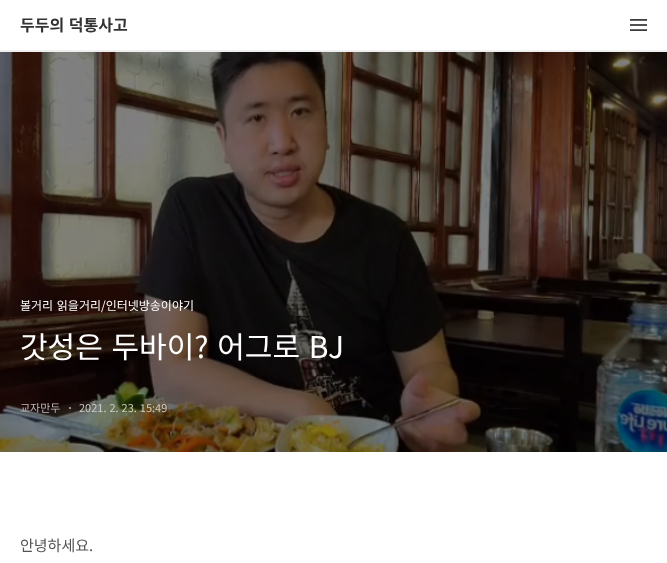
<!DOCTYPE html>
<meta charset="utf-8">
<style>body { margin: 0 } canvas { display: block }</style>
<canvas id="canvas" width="667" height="563"></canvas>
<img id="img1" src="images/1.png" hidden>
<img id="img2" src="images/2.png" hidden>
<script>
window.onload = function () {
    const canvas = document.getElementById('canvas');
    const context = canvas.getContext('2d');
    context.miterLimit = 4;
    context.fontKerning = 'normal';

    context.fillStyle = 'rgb(255, 255, 255)';
    context.fillRect(0, 0, 667, 563);
    context.fillStyle = 'rgb(239, 239, 239)';
    context.fillRect(0, 50, 667, 2);
    context.drawImage(document.getElementById('img1'), 630, 19, 17, 12);
    context.drawImage(document.getElementById('img2'), 0, 52, 667, 400);
    context.fillStyle = 'rgb(189, 185, 184)';
    context.beginPath();
    context.arc(70, 408, 1, 0, 2 * Math.PI);
    context.fill();
    context.wordSpacing = '1px';
    context.font = 'bold 16px Noto Sans KR';
    context.fillStyle = 'rgb(51, 51, 51)';
    context.fillText('두두의 덕통사고', 20, 31);
    context.font = '12px Noto Sans KR';
    context.fillStyle = 'rgb(255, 255, 255)';
    context.fillText('볼거리 읽을거리/인터넷방송이야기', 20, 310);
    context.wordSpacing = '2px';
    context.font = '30px Noto Sans KR';
    context.fillText('갓성은 두바이? 어그로 BJ', 20, 358);
    context.wordSpacing = '0px';
    context.font = '11px Noto Sans KR';
    context.fillStyle = 'rgb(188, 184, 184)';
    context.fillText('교자만두', 20, 412);
    context.wordSpacing = '0.5px';
    context.fillStyle = 'rgb(204, 203, 196)';
    context.fillText('2021. 2. 23. 15:49', 79, 412);
    context.wordSpacing = '0px';
    context.font = '15px Noto Sans KR';
    context.fillStyle = 'rgb(85, 85, 85)';
    context.fillText('안녕하세요.', 20, 551);
};
</script>
